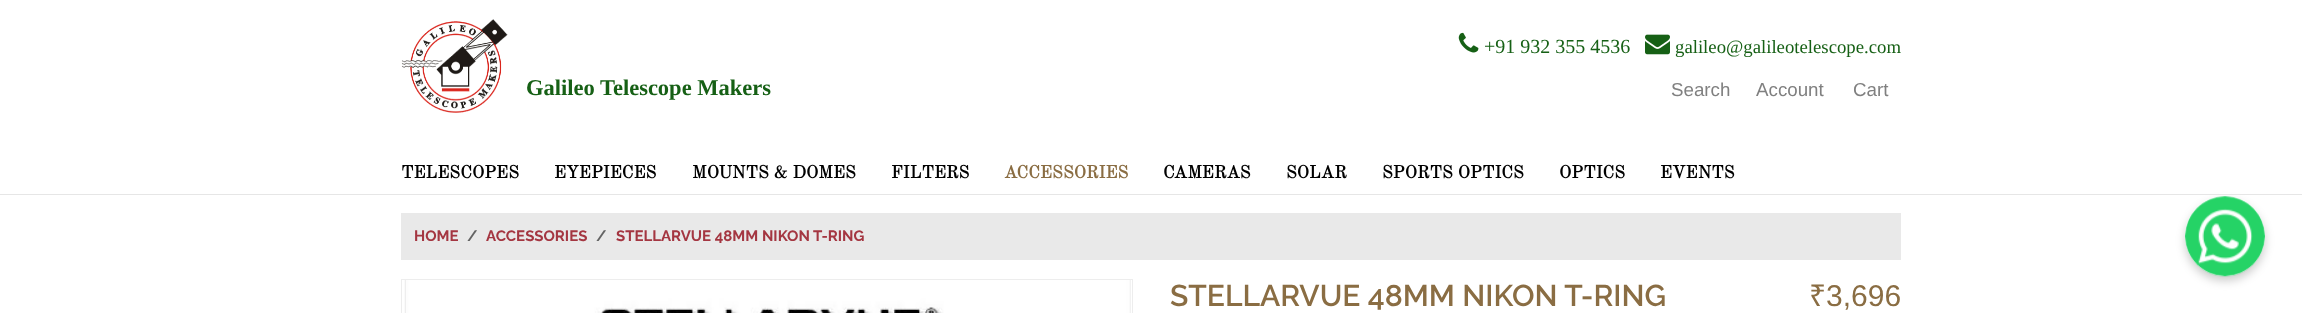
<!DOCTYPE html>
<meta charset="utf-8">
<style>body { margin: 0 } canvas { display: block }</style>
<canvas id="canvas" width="2302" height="313"></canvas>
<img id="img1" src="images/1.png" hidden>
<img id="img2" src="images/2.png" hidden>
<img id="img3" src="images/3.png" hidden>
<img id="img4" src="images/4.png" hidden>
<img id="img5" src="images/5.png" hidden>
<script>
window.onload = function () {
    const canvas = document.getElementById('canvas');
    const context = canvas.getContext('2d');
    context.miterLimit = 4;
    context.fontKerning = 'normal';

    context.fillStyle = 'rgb(255, 255, 255)';
    context.fillRect(0, 0, 2302, 313);
    context.save();
    context.beginPath();
    context.moveTo(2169, 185);
    context.lineTo(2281, 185);
    context.lineTo(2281, 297);
    context.lineTo(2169, 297);
    context.closePath();
    context.moveTo(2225, 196);
    context.bezierCurveTo(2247, 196, 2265, 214, 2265, 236);
    context.bezierCurveTo(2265, 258, 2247, 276, 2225, 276);
    context.bezierCurveTo(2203, 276, 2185, 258, 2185, 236);
    context.bezierCurveTo(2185, 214, 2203, 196, 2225, 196);
    context.closePath();
    context.clip('evenodd');
    context.fillStyle = 'rgba(0, 0, 0, 0.2)';
    context.filter = 'blur(5px)';
    context.beginPath();
    context.roundRect(2185, 201, 80, 80, 40);
    context.fill();
    context.filter = 'none';
    context.restore();
    context.fillRect(2219, 193, 12, 1);
    context.fillStyle = 'rgb(230, 230, 230)';
    context.fillRect(0, 194, 2302, 1);
    context.drawImage(document.getElementById('img1'), 401, 19, 107, 94);
    context.drawImage(document.getElementById('img2'), 1458, 32, 21, 21);
    context.drawImage(document.getElementById('img3'), 1645, 34, 25, 21);
    context.fillStyle = 'rgb(233, 233, 233)';
    context.fillRect(401, 213, 1500, 47);
    context.strokeStyle = 'rgb(237, 237, 237)';
    context.strokeRect(401.5, 279.5, 731, 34);
    context.drawImage(document.getElementById('img4'), 404, 280, 727, 33);
    context.drawImage(document.getElementById('img5'), 2185, 196, 80, 81);
    context.font = 'bold 22.5px Liberation Serif';
    context.fillStyle = 'rgb(22, 96, 21)';
    context.fillText('Galileo Telescope Makers', 526, 95);
    context.font = '20px Liberation Serif';
    context.fillText('+91 932 355 4536', 1484, 53);
    context.font = '18.75px Liberation Serif';
    context.fillText('galileo@galileotelescope.com', 1675, 53);
    context.font = '18.75px Liberation Sans';
    context.fillStyle = 'rgb(128, 128, 128)';
    context.fillText('Search', 1671, 96);
    context.fillText('Account', 1756, 96);
    context.fillText('Cart', 1853, 96);
    context.font = 'bold 17.5px Old Standard TT';
    context.fillStyle = 'rgb(0, 0, 0)';
    context.fillText('TELESCOPES', 401, 178);
    context.fillText('EYEPIECES', 554, 178);
    context.fillText('MOUNTS & DOMES', 692, 178);
    context.fillText('FILTERS', 891, 178);
    context.fillStyle = 'rgb(138, 109, 67)';
    context.fillText('ACCESSORIES', 1004, 178);
    context.fillStyle = 'rgb(0, 0, 0)';
    context.fillText('CAMERAS', 1163, 178);
    context.fillText('SOLAR', 1286, 178);
    context.fillText('SPORTS OPTICS', 1382, 178);
    context.fillText('OPTICS', 1559, 178);
    context.fillText('EVENTS', 1660, 178);
    context.font = 'bold 15px Raleway';
    context.fillStyle = 'rgb(164, 54, 65)';
    context.fillText('HOME', 414, 241);
    context.fillStyle = 'rgb(99, 99, 99)';
    context.fillText('/', 467, 241);
    context.fillStyle = 'rgb(164, 54, 65)';
    context.fillText('ACCESSORIES', 486, 241);
    context.fillStyle = 'rgb(99, 99, 99)';
    context.fillText('/', 596, 241);
    context.fillStyle = 'rgb(164, 54, 65)';
    context.fillText('STELLARVUE 48MM NIKON T-RING', 616, 241);
    context.font = '600 30px Raleway';
    context.fillStyle = 'rgb(138, 109, 67)';
    context.fillText('STELLARVUE 48MM NIKON T-RING', 1170, 306);
    context.font = '30px Noto Sans';
    context.fillText('₹', 1809, 306);
    context.font = '30px Liberation Sans';
    context.fillText('3,696', 1826, 306);
};
</script>
